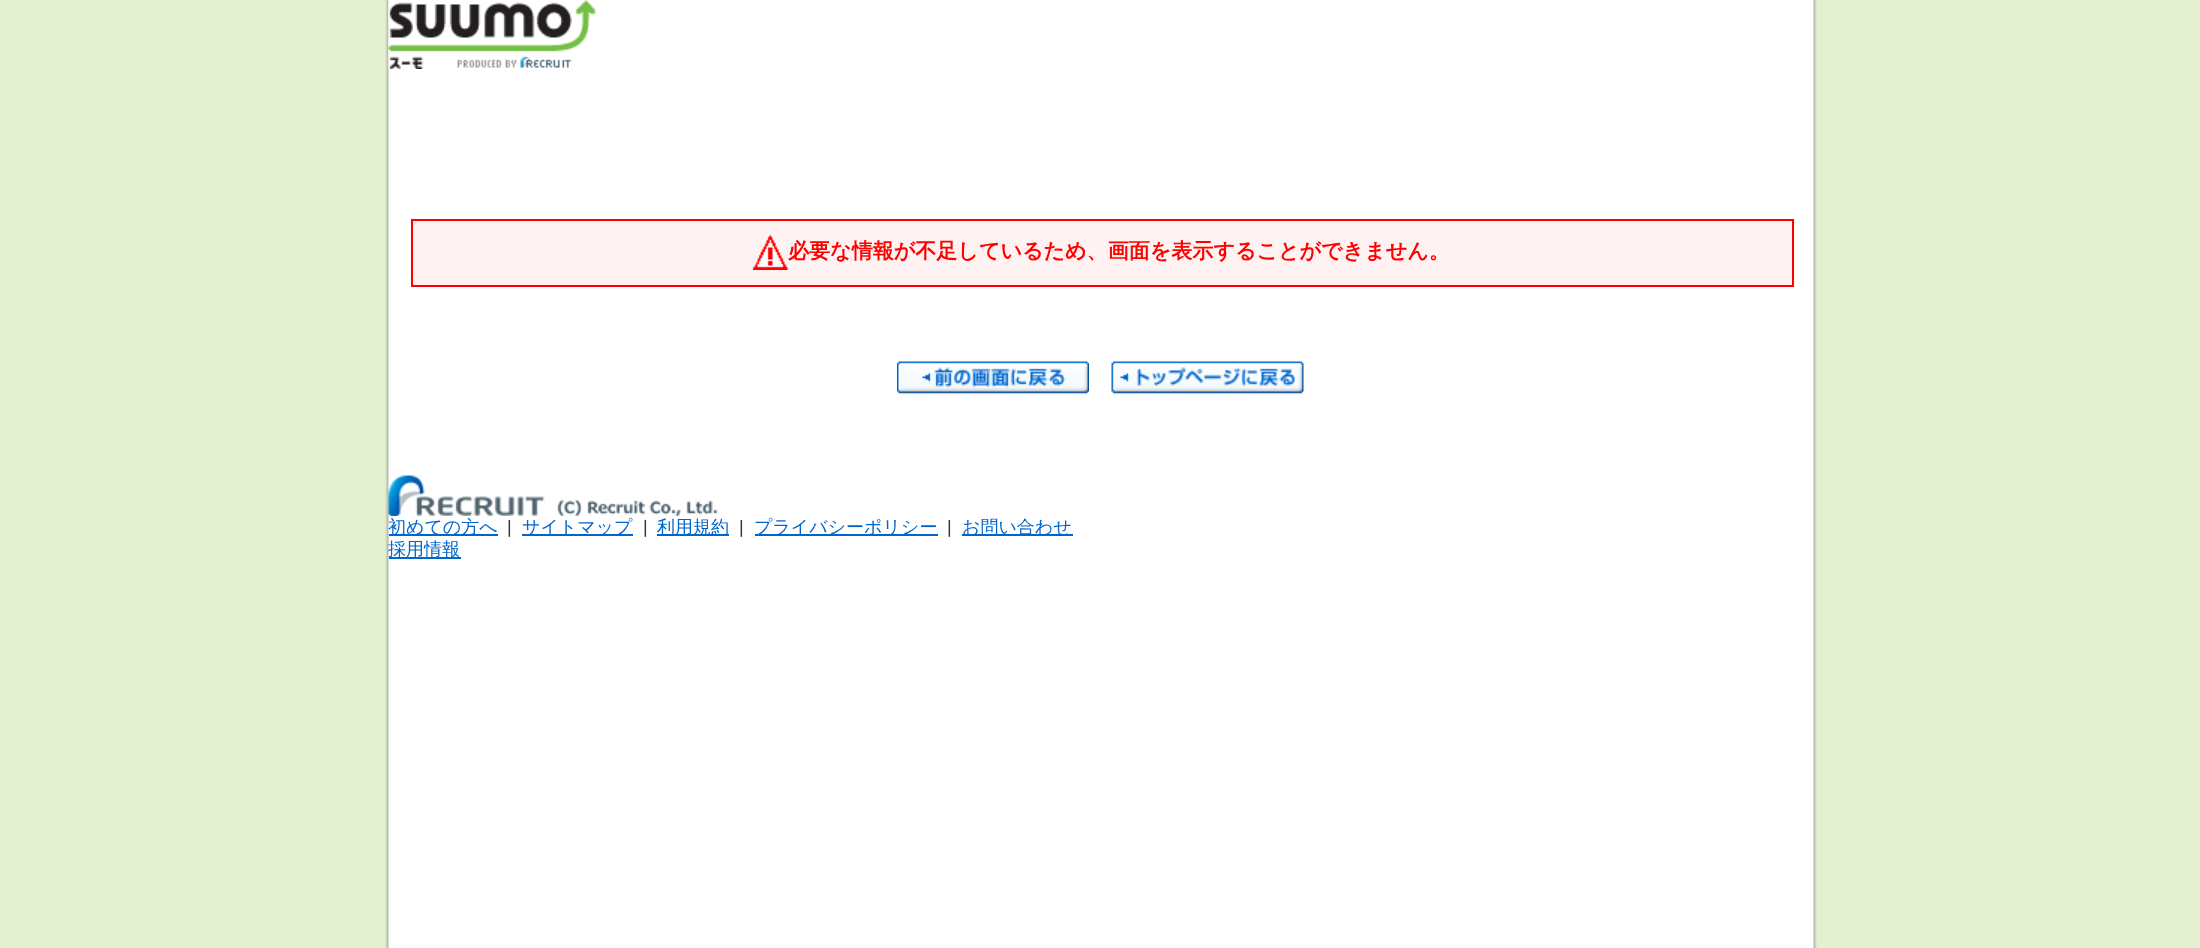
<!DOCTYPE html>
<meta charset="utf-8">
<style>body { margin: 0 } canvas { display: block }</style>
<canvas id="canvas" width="2200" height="948"></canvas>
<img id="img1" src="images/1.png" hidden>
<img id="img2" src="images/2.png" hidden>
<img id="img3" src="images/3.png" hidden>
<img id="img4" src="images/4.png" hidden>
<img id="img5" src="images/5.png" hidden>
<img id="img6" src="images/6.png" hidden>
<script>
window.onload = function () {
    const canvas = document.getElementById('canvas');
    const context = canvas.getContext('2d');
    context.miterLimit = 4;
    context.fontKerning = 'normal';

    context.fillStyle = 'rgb(227, 241, 210)';
    context.fillRect(0, 0, 2200, 948);
    context.drawImage(document.getElementById('img1'), 385, 0, 1432, 948);
    context.drawImage(document.getElementById('img2'), 388, 0, 208, 69);
    context.fillStyle = 'rgb(255, 242, 242)';
    context.beginPath();
    context.rect(412, 220, 1381, 66);
    context.fill();
    context.strokeStyle = 'rgb(255, 0, 0)';
    context.lineWidth = 2;
    context.stroke();
    context.drawImage(document.getElementById('img3'), 753, 235, 35, 35);
    context.drawImage(document.getElementById('img4'), 897, 361, 192, 34);
    context.drawImage(document.getElementById('img5'), 1111, 361, 193, 34);
    context.drawImage(document.getElementById('img6'), 388, 475, 330, 41);
    context.fillStyle = 'rgb(0, 102, 204)';
    context.fillRect(389, 534, 109, 2);
    context.fillRect(522, 534, 111, 2);
    context.fillRect(657, 534, 72, 2);
    context.fillRect(755, 534, 183, 2);
    context.fillRect(962, 534, 111, 2);
    context.fillRect(389, 557, 72, 2);
    context.font = 'bold 21.05px WenQuanYi Zen Hei';
    context.fillStyle = 'rgb(255, 0, 0)';
    context.fillText('必要な情報が不足しているため、画面を表示することができません。', 788, 258);
    context.font = '500 18px WenQuanYi Zen Hei';
    context.fillStyle = 'rgb(0, 102, 204)';
    context.fillText('初めての方へ', 388, 533);
    context.font = '18px Liberation Sans';
    context.fillStyle = 'rgb(51, 51, 51)';
    context.fillText('|', 507, 533);
    context.font = '500 18px WenQuanYi Zen Hei';
    context.fillStyle = 'rgb(0, 102, 204)';
    context.fillText('サイトマップ', 522, 533);
    context.font = '18px Liberation Sans';
    context.fillStyle = 'rgb(51, 51, 51)';
    context.fillText('|', 643, 533);
    context.font = '500 18px WenQuanYi Zen Hei';
    context.fillStyle = 'rgb(0, 102, 204)';
    context.fillText('利用規約', 657, 533);
    context.font = '18px Liberation Sans';
    context.fillStyle = 'rgb(51, 51, 51)';
    context.fillText('|', 739, 533);
    context.font = '500 18px WenQuanYi Zen Hei';
    context.fillStyle = 'rgb(0, 102, 204)';
    context.fillText('プライバシーポリシー', 754, 533);
    context.font = '18px Liberation Sans';
    context.fillStyle = 'rgb(51, 51, 51)';
    context.fillText('|', 947, 533);
    context.font = '500 18px WenQuanYi Zen Hei';
    context.fillStyle = 'rgb(0, 102, 204)';
    context.fillText('お問い合わせ', 962, 533);
    context.fillText('採用情報', 388, 555);
};
</script>
